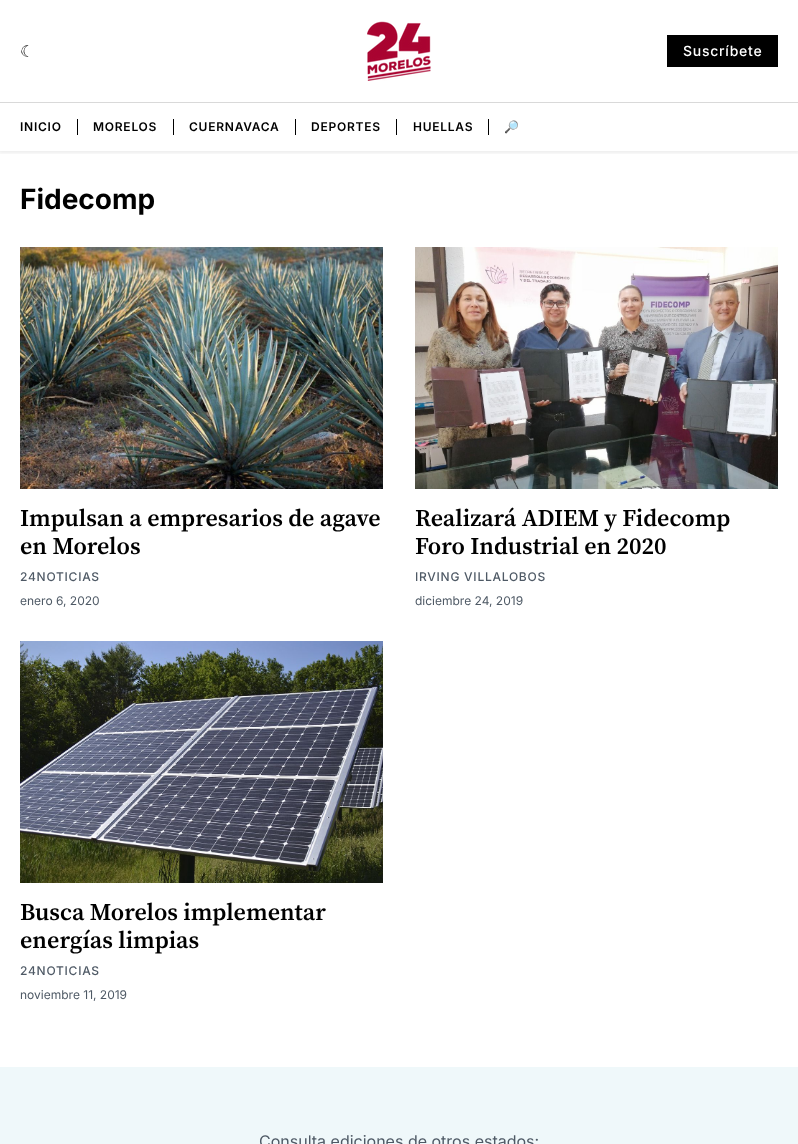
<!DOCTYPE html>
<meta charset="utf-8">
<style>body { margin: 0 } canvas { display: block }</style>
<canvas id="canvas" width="798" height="1144"></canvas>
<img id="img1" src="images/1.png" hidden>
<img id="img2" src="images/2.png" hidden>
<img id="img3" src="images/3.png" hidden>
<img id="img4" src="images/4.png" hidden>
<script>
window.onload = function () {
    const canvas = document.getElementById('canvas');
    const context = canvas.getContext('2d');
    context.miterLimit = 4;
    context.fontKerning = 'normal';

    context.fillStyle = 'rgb(255, 255, 255)';
    context.fillRect(0, 0, 798, 1144);
    context.save();
    context.beginPath();
    context.rect(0, 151, 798, 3);
    context.clip();
    context.fillStyle = 'rgba(0, 0, 0, 0.08)';
    context.filter = 'blur(2px)';
    context.beginPath();
    context.rect(-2, -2, 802, 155);
    context.fill();
    context.filter = 'none';
    context.restore();
    context.fillStyle = 'rgb(217, 217, 217)';
    context.fillRect(0, 102, 798, 1);
    context.drawImage(document.getElementById('img1'), 367, 21, 64, 60);
    context.fillStyle = 'rgb(0, 0, 0)';
    context.fillRect(667, 35, 111, 32);
    context.fillRect(77, 119, 1, 16);
    context.fillRect(173, 119, 1, 16);
    context.fillRect(295, 119, 1, 16);
    context.fillRect(396, 119, 1, 16);
    context.fillRect(488, 119, 1, 16);
    context.drawImage(document.getElementById('img2'), 20, 247, 363, 242);
    context.drawImage(document.getElementById('img3'), 415, 247, 363, 242);
    context.drawImage(document.getElementById('img4'), 20, 641, 363, 242);
    context.fillStyle = 'rgb(239, 248, 250)';
    context.fillRect(0, 1067, 798, 77);
    context.letterSpacing = '0.75px';
    context.font = '16px DejaVu Sans';
    context.fillStyle = 'rgb(0, 0, 0)';
    context.fillText('☾', 20, 57);
    context.font = '500 14px Inter';
    context.fillStyle = 'rgb(255, 255, 255)';
    context.fillText('Suscríbete', 683, 56);
    context.font = '600 12px Inter';
    context.fillStyle = 'rgb(0, 0, 0)';
    context.fillText('INICIO', 20, 131);
    context.fillText('MORELOS', 93, 131);
    context.fillText('CUERNAVACA', 189, 131);
    context.fillText('DEPORTES', 311, 131);
    context.fillText('HUELLAS', 413, 131);
    context.font = 'bold 12px Noto Color Emoji';
    context.fillText('🔎', 504, 131);
    context.letterSpacing = '0px';
    context.font = 'bold 28px Inter';
    context.fillText('Fidecomp', 20, 209);
    context.font = '600 24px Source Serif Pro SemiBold';
    context.fillText('Impulsan a empresarios de agave', 20, 526);
    context.fillText('en Morelos', 20, 554);
    context.letterSpacing = '0.75px';
    context.font = '500 12px Inter';
    context.fillStyle = 'rgb(78, 89, 101)';
    context.fillText('24NOTICIAS', 20, 581);
    context.letterSpacing = '0px';
    context.font = '12px Inter';
    context.fillText('enero 6, 2020', 20, 605);
    context.font = '600 24px Source Serif Pro SemiBold';
    context.fillStyle = 'rgb(0, 0, 0)';
    context.fillText('Realizará ADIEM y Fidecomp', 415, 526);
    context.fillText('Foro Industrial en 2020', 415, 554);
    context.letterSpacing = '0.75px';
    context.font = '500 12px Inter';
    context.fillStyle = 'rgb(78, 89, 101)';
    context.fillText('IRVING VILLALOBOS', 415, 581);
    context.letterSpacing = '0px';
    context.font = '12px Inter';
    context.fillText('diciembre 24, 2019', 415, 605);
    context.font = '600 24px Source Serif Pro SemiBold';
    context.fillStyle = 'rgb(0, 0, 0)';
    context.fillText('Busca Morelos implementar', 20, 920);
    context.fillText('energías limpias', 20, 948);
    context.letterSpacing = '0.75px';
    context.font = '500 12px Inter';
    context.fillStyle = 'rgb(78, 89, 101)';
    context.fillText('24NOTICIAS', 20, 975);
    context.letterSpacing = '0px';
    context.font = '12px Inter';
    context.fillText('noviembre 11, 2019', 20, 999);
    context.font = '16px Inter';
    context.fillText('Consulta ediciones de otros estados:', 259, 1147);
};
</script>
